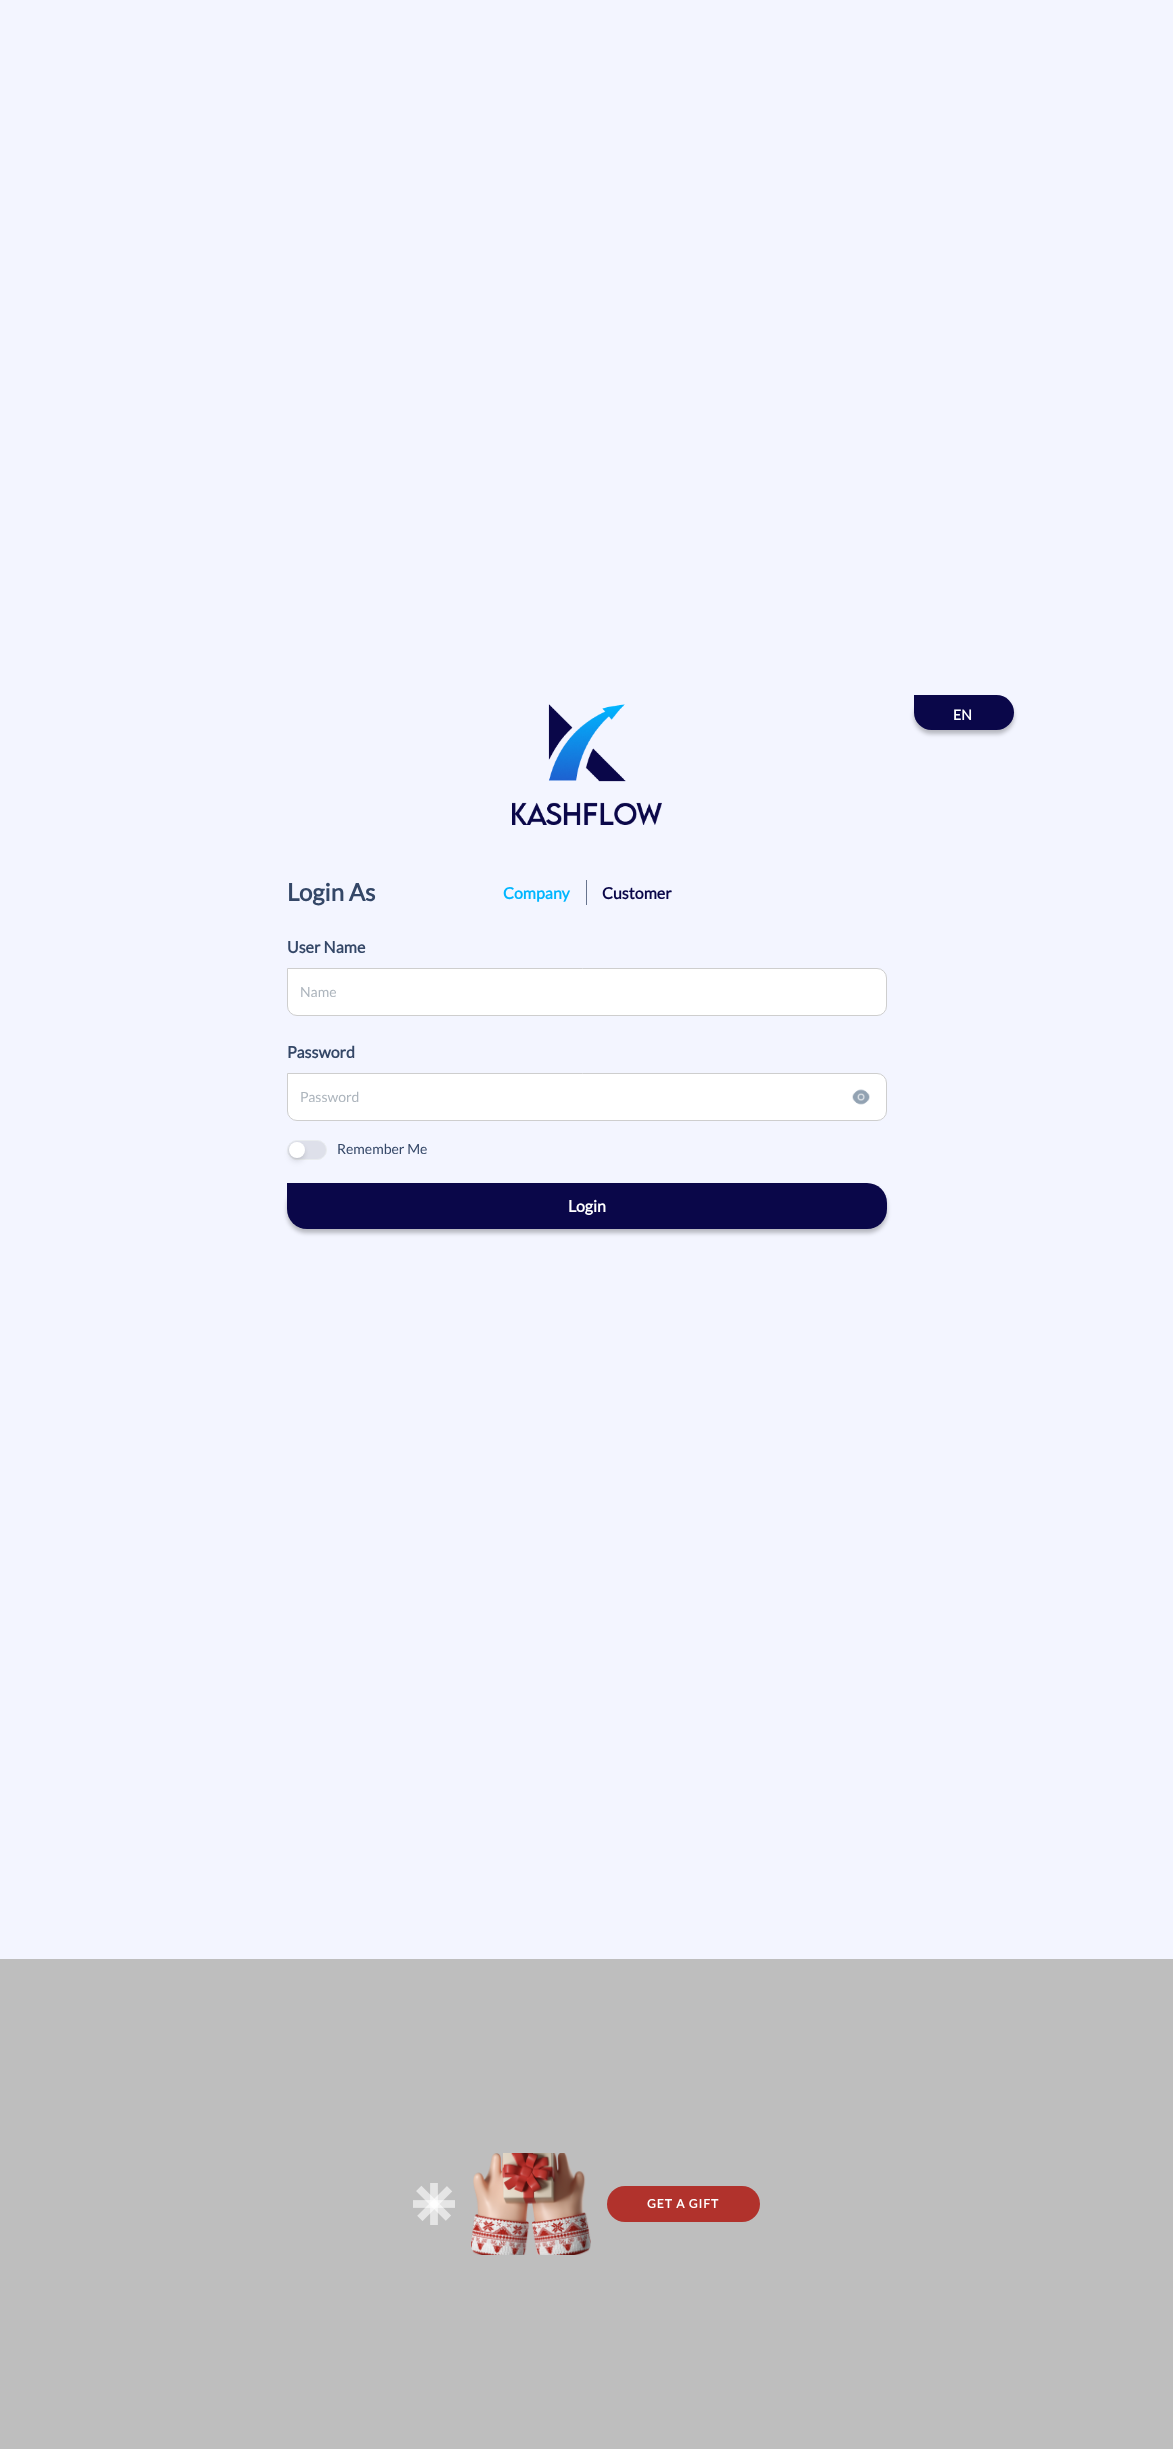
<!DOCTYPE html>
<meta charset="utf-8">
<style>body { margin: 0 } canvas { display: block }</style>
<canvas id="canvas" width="1173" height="2449"></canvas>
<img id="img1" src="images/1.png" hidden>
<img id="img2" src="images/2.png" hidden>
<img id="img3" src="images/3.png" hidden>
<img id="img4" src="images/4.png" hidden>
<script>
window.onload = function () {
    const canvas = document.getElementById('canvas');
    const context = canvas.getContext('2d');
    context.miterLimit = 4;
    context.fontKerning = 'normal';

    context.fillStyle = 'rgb(243, 245, 255)';
    context.fillRect(0, 0, 1173, 2449);
    context.drawImage(document.getElementById('img1'), 512, 704, 150, 121);
    context.fillStyle = 'rgba(0, 0, 0, 0.25)';
    context.filter = 'blur(2px)';
    context.beginPath();
    context.roundRect(914, 699, 100, 35, 17.5);
    context.fill();
    context.filter = 'none';
    context.fillStyle = 'rgb(10, 7, 73)';
    context.beginPath();
    context.roundRect(914, 695, 100, 35, [0, 17.5, 17.5, 17.5]);
    context.fill();
    context.fillStyle = 'rgb(103, 116, 142)';
    context.fillRect(586, 880, 1, 25);
    context.fillStyle = 'rgb(255, 255, 255)';
    context.beginPath();
    context.roundRect(287.5, 968.5, 599, 47, [0, 9.5, 9.5, 9.5]);
    context.fill();
    context.strokeStyle = 'rgb(206, 206, 206)';
    context.stroke();
    context.beginPath();
    context.roundRect(287.5, 1073.5, 599, 47, [0, 9.5, 9.5, 9.5]);
    context.fill();
    context.stroke();
    context.drawImage(document.getElementById('img2'), 852, 1089, 18, 16);
    context.fillStyle = 'rgb(222, 224, 234)';
    context.beginPath();
    context.roundRect(287.5, 1140.5, 39, 19, 9.5);
    context.fill();
    context.strokeStyle = 'rgb(233, 236, 239)';
    context.stroke();
    context.fillStyle = 'rgba(20, 20, 20, 0.07)';
    context.filter = 'blur(2px)';
    context.beginPath();
    context.roundRect(290, 1145, 14, 14, 7);
    context.fill();
    context.filter = 'none';
    context.fillStyle = 'rgba(20, 20, 20, 0.12)';
    context.filter = 'blur(3px)';
    context.beginPath();
    context.roundRect(290, 1147, 14, 14, 7);
    context.fill();
    context.filter = 'none';
    context.fillStyle = 'rgb(255, 255, 255)';
    context.beginPath();
    context.arc(297, 1150, 8, 0, 2 * Math.PI);
    context.fill();
    context.fillStyle = 'rgba(0, 0, 0, 0.25)';
    context.filter = 'blur(2px)';
    context.beginPath();
    context.roundRect(287, 1187, 600, 46, 20);
    context.fill();
    context.filter = 'none';
    context.fillStyle = 'rgb(10, 7, 73)';
    context.beginPath();
    context.roundRect(287, 1183, 600, 46, [0, 20, 20, 20]);
    context.fill();
    context.fillStyle = 'rgb(190, 190, 190)';
    context.fillRect(0, 1959, 1173, 490);
    context.drawImage(document.getElementById('img3'), 413, 2183, 42, 42);
    context.drawImage(document.getElementById('img4'), 471, 2153, 120, 102);
    context.fillStyle = 'rgb(177, 50, 44)';
    context.beginPath();
    context.roundRect(607, 2186, 153, 36, 18);
    context.fill();
    context.font = 'bold 14px Lato';
    context.fillStyle = 'rgb(255, 255, 255)';
    context.fillText('EN', 953, 720);
    context.font = 'bold 24px Lato';
    context.fillStyle = 'rgb(52, 71, 103)';
    context.fillText('Login As', 287, 901);
    context.font = 'bold 16px Lato';
    context.fillStyle = 'rgb(0, 182, 255)';
    context.fillText('Company', 503, 899);
    context.fillStyle = 'rgb(10, 7, 73)';
    context.fillText('Customer', 602, 899);
    context.fillStyle = 'rgb(52, 71, 103)';
    context.fillText('User Name', 287, 953);
    context.font = '14px Lato';
    context.fillStyle = 'rgb(173, 181, 189)';
    context.fillText('Name', 300, 997);
    context.font = 'bold 16px Lato';
    context.fillStyle = 'rgb(52, 71, 103)';
    context.fillText('Password', 287, 1058);
    context.font = '14px Lato';
    context.fillStyle = 'rgb(173, 181, 189)';
    context.fillText('Password', 300, 1102);
    context.fillStyle = 'rgb(52, 71, 103)';
    context.fillText('Remember Me', 337, 1154);
    context.font = 'bold 16px Lato';
    context.fillStyle = 'rgb(255, 255, 255)';
    context.fillText('Login', 568, 1212);
    context.letterSpacing = '1px';
    context.font = 'bold 12px Lato';
    context.fillText('GET A GIFT', 647, 2208);
};
</script>
